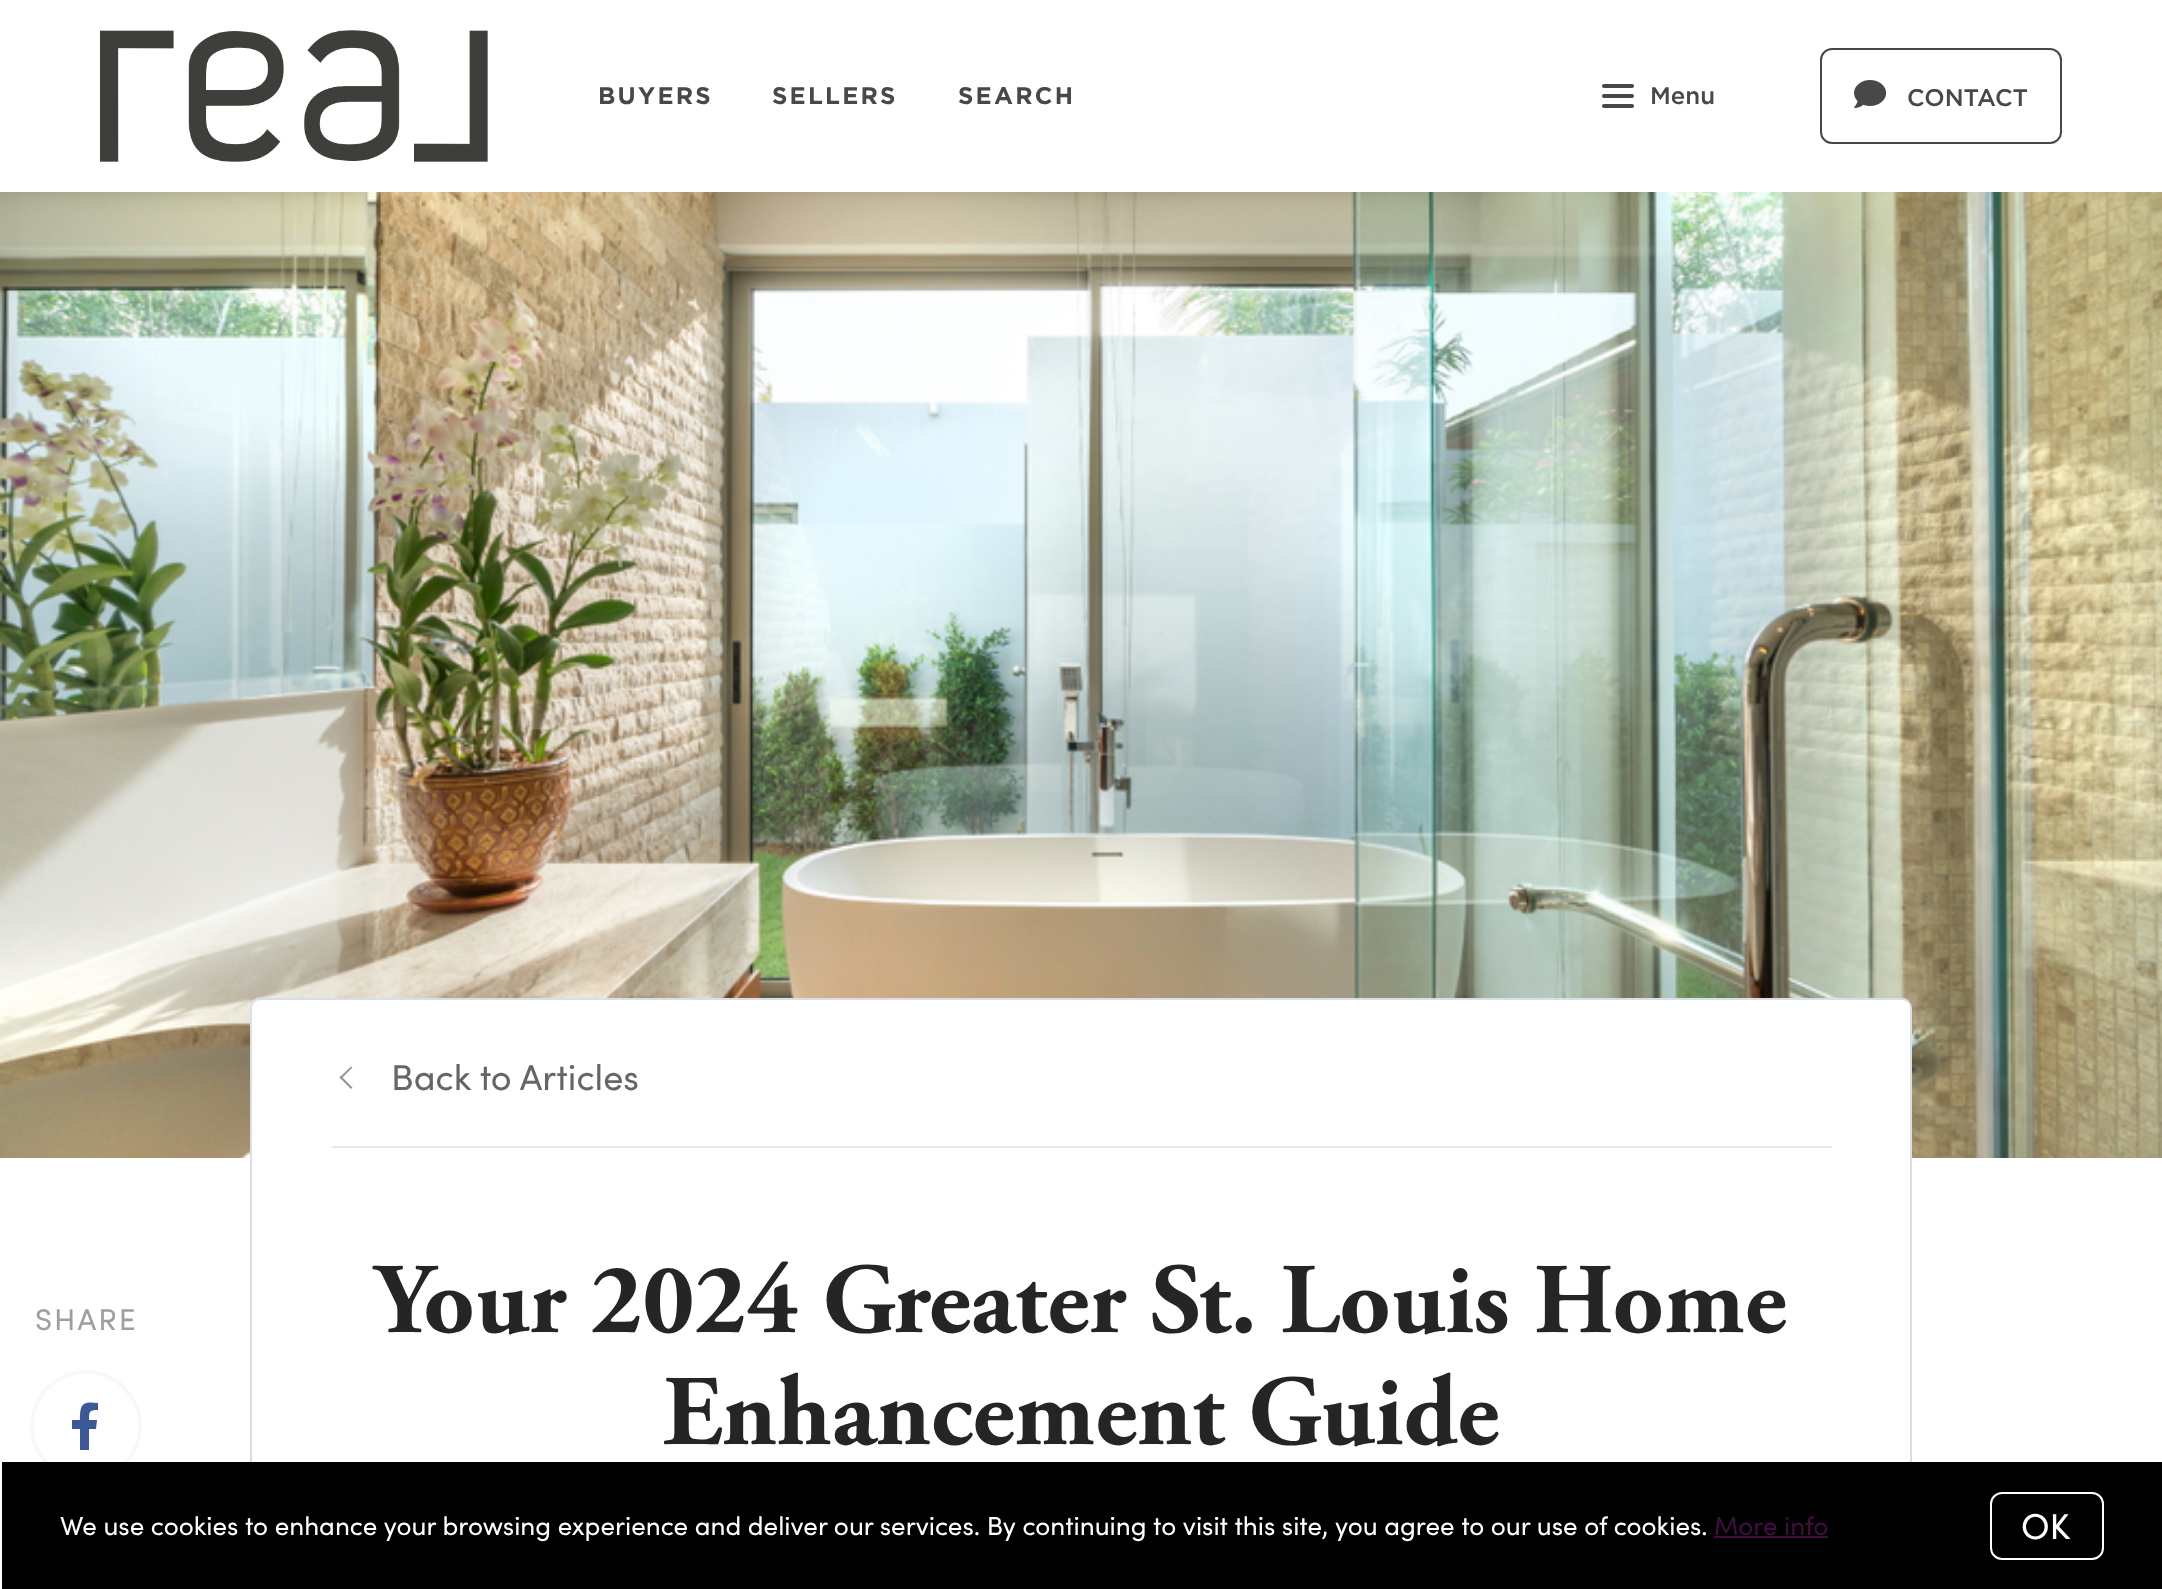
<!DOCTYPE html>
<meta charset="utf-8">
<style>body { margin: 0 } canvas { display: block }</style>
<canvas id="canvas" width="2162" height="1589"></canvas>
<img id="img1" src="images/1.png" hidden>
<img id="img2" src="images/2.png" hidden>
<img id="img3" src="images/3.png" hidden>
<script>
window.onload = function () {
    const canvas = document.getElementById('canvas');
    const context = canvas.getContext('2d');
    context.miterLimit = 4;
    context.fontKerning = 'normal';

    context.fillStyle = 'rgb(255, 255, 255)';
    context.fillRect(0, 0, 2162, 1589);
    context.drawImage(document.getElementById('img1'), 100, 30, 388, 132);
    context.fillStyle = 'rgb(72, 72, 72)';
    context.beginPath();
    context.roundRect(1602, 84, 32, 4, 2);
    context.fill();
    context.beginPath();
    context.roundRect(1602, 94, 32, 4, 2);
    context.fill();
    context.beginPath();
    context.roundRect(1602, 104, 32, 4, 2);
    context.fill();
    context.beginPath();
    context.roundRect(1821, 49, 240, 94, 11);
    context.strokeStyle = 'rgb(72, 72, 72)';
    context.lineWidth = 2;
    context.stroke();
    context.drawImage(document.getElementById('img2'), 1854, 80, 33, 28);
    context.drawImage(document.getElementById('img3'), 0, 192, 2162, 966);
    context.beginPath();
    context.arc(86, 1426, 54, 0, 2 * Math.PI);
    context.strokeStyle = 'rgb(246, 248, 250)';
    context.lineWidth = 4;
    context.stroke();
    context.fillStyle = 'rgb(59, 89, 152)';
    context.beginPath();
    context.moveTo(96, 1429);
    context.lineTo(89, 1429);
    context.lineTo(89, 1450);
    context.lineTo(80, 1450);
    context.lineTo(80, 1429);
    context.lineTo(72, 1429);
    context.lineTo(72, 1420);
    context.lineTo(80, 1420);
    context.bezierCurveTo(80, 1404, 82, 1401, 98, 1403);
    context.lineTo(98, 1410);
    context.bezierCurveTo(89, 1410, 89, 1412, 89, 1420);
    context.lineTo(97, 1420);
    context.closePath();
    context.fill();
    context.fillStyle = 'rgb(255, 255, 255)';
    context.beginPath();
    context.roundRect(251, 999, 1660, 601, 9);
    context.fill();
    context.strokeStyle = 'rgb(216, 223, 230)';
    context.lineWidth = 2;
    context.stroke();
    context.fillStyle = 'rgb(232, 232, 230)';
    context.fillRect(332, 1146, 1500, 2);
    context.fillStyle = 'rgb(148, 148, 148)';
    context.beginPath();
    context.moveTo(339.5, 1077.5);
    context.lineTo(351, 1066.5);
    context.lineTo(352.5, 1067.5);
    context.lineTo(341, 1079);
    context.closePath();
    context.fill();
    context.beginPath();
    context.moveTo(339.5, 1077.5);
    context.lineTo(341, 1076);
    context.lineTo(352.5, 1087.5);
    context.lineTo(351, 1089);
    context.closePath();
    context.fill();
    context.fillStyle = 'rgb(0, 0, 0)';
    context.fillRect(2, 1462, 2160, 127);
    context.fillStyle = 'rgb(65, 12, 65)';
    context.fillRect(1714, 1536, 114, 2);
    context.beginPath();
    context.roundRect(1991, 1493, 112, 66, 11);
    context.strokeStyle = 'rgb(255, 255, 255)';
    context.stroke();
    context.letterSpacing = '2.25px';
    context.font = 'bold 24px Gotham';
    context.fillStyle = 'rgb(72, 72, 72)';
    context.fillText('BUYERS', 598, 104);
    context.fillText('SELLERS', 772, 104);
    context.fillText('SEARCH', 958, 104);
    context.letterSpacing = '0px';
    context.font = '500 24px Gotham';
    context.fillText('Menu', 1650, 104);
    context.fillText('CONTACT', 1907, 106);
    context.letterSpacing = '2px';
    context.font = '30px Sofia';
    context.fillStyle = 'rgb(156, 160, 162)';
    context.fillText('SHARE', 35, 1330);
    context.letterSpacing = '0px';
    context.font = '36px Sofia';
    context.fillStyle = 'rgb(102, 102, 102)';
    context.fillText('Back to Articles', 391, 1090);
    context.font = 'bold 100px Adobe Garamond';
    context.fillStyle = 'rgb(37, 37, 37)';
    context.fillText('Your 2024 Greater St. Louis Home', 375, 1332);
    context.fillText('Enhancement Guide', 663, 1444);
    context.font = '26px Sofia';
    context.fillStyle = 'rgb(255, 255, 255)';
    context.fillText('We use cookies to enhance your browsing experience and deliver our services. By continuing to visit this site, you agree to our use of cookies.', 60, 1535);
    context.fillStyle = 'rgb(65, 12, 65)';
    context.fillText('More info', 1714, 1535);
    context.font = '36px Sofia';
    context.fillStyle = 'rgb(255, 255, 255)';
    context.fillText('OK', 2021, 1539);
};
</script>
